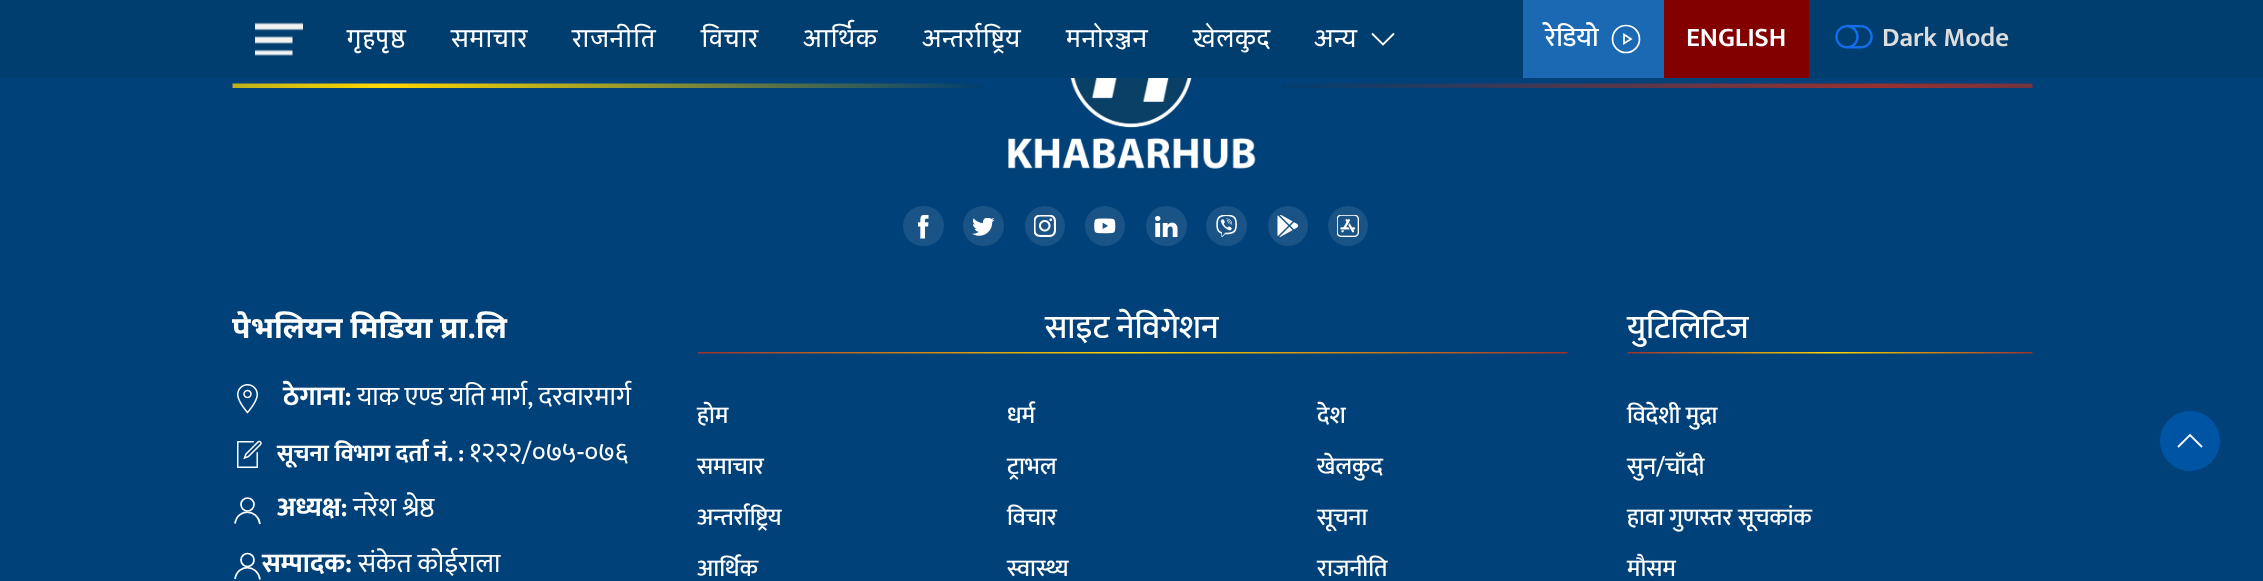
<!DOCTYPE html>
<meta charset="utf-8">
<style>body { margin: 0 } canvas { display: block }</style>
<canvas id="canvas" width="2263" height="581"></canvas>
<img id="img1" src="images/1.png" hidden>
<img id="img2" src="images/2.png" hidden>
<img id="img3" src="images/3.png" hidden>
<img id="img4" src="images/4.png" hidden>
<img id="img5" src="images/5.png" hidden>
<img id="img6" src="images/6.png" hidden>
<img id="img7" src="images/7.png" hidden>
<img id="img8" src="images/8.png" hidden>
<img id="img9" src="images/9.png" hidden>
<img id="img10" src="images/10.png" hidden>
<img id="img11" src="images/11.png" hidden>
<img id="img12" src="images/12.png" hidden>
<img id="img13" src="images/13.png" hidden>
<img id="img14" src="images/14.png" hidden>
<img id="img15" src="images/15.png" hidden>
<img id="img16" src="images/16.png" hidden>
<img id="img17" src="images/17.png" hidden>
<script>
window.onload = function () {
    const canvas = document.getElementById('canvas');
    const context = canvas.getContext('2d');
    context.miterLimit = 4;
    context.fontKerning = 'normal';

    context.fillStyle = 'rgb(0, 65, 121)';
    context.fillRect(0, 0, 2263, 581);
    context.fillStyle = 'rgb(0, 62, 111)';
    context.fillRect(0, 0, 2263, 78);
    context.drawImage(document.getElementById('img1'), 255, 22, 48, 34);
    context.beginPath();
    context.moveTo(1394, 33.5);
    context.lineTo(1383, 44.5);
    context.lineTo(1372, 33.5);
    context.strokeStyle = 'rgb(255, 255, 255)';
    context.lineWidth = 1.9;
    context.stroke();
    context.fillStyle = 'rgb(27, 104, 179)';
    context.fillRect(1523, 0, 141, 78);
    context.beginPath();
    context.moveTo(1624, 34.5);
    context.lineTo(1631, 39);
    context.lineTo(1624, 43.5);
    context.closePath();
    context.lineWidth = 1.7;
    context.stroke();
    context.beginPath();
    context.arc(1626, 39, 13.5, 0, 2 * Math.PI);
    context.stroke();
    context.fillStyle = 'rgb(130, 0, 0)';
    context.fillRect(1664, 0, 145, 78);
    context.drawImage(document.getElementById('img2'), 1835, 25, 38, 24);
    context.drawImage(document.getElementById('img3'), 232, 83, 751, 5);
    context.drawImage(document.getElementById('img4'), 1008, 78, 248, 91);
    context.drawImage(document.getElementById('img5'), 1281, 83, 752, 5);
    context.fillStyle = 'rgb(26, 84, 134)';
    context.beginPath();
    context.roundRect(903, 206, 41, 40, 20);
    context.fill();
    context.drawImage(document.getElementById('img6'), 918, 215, 11, 24);
    context.beginPath();
    context.roundRect(963, 206, 41, 40, 20);
    context.fill();
    context.drawImage(document.getElementById('img7'), 972, 218, 23, 18);
    context.beginPath();
    context.arc(1045, 226, 20, 0, 2 * Math.PI);
    context.fill();
    context.drawImage(document.getElementById('img8'), 1034, 215, 22, 22);
    context.beginPath();
    context.arc(1105, 226, 20, 0, 2 * Math.PI);
    context.fill();
    context.drawImage(document.getElementById('img9'), 1094, 218, 22, 16);
    context.beginPath();
    context.roundRect(1146, 206, 41, 40, 20);
    context.fill();
    context.drawImage(document.getElementById('img10'), 1155, 216, 23, 21);
    context.beginPath();
    context.roundRect(1206, 206, 41, 40, 20);
    context.fill();
    context.drawImage(document.getElementById('img11'), 1216, 215, 21, 22);
    context.beginPath();
    context.arc(1288, 226, 20, 0, 2 * Math.PI);
    context.fill();
    context.drawImage(document.getElementById('img12'), 1277, 215, 21, 22);
    context.beginPath();
    context.arc(1348, 226, 20, 0, 2 * Math.PI);
    context.fill();
    context.drawImage(document.getElementById('img13'), 1337, 215, 22, 22);
    context.drawImage(document.getElementById('img14'), 237, 384, 21, 30);
    context.drawImage(document.getElementById('img15'), 237, 440, 25, 28);
    context.beginPath();
    context.arc(247.5, 504.5, 6.5, 0, 2 * Math.PI);
    context.stroke();
    context.beginPath();
    context.moveTo(235, 523.5);
    context.bezierCurveTo(237.5, 508, 257.5, 508.5, 260, 524);
    context.stroke();
    context.beginPath();
    context.arc(247.5, 560, 6.5, 0, 2 * Math.PI);
    context.stroke();
    context.beginPath();
    context.moveTo(235, 579);
    context.bezierCurveTo(237.5, 563.5, 257.5, 564, 260, 579.5);
    context.stroke();
    context.drawImage(document.getElementById('img16'), 697, 352, 871, 2);
    context.drawImage(document.getElementById('img17'), 1627, 352, 406, 2);
    context.fillStyle = 'rgb(0, 84, 164)';
    context.beginPath();
    context.arc(2190, 441, 30, 0, 2 * Math.PI);
    context.fill();
    context.beginPath();
    context.moveTo(2178, 447);
    context.lineTo(2190, 435);
    context.lineTo(2202, 447);
    context.lineWidth = 1.8;
    context.stroke();
    context.font = '25.5px Sarala';
    context.fillStyle = 'rgb(255, 255, 255)';
    context.fillText('गृहपृष्ठ', 347, 47);
    context.fillText('समाचार', 451, 47);
    context.fillText('राजनीति', 572, 47);
    context.fillText('विचार', 701, 47);
    context.fillText('आर्थिक', 803, 47);
    context.fillText('अन्तर्राष्ट्रिय', 922, 47);
    context.fillText('मनोरञ्जन', 1066, 47);
    context.fillText('खेलकुद', 1193, 47);
    context.fillText('अन्य', 1314, 47);
    context.font = '500 27px Mukta';
    context.fillText('रेडियो', 1545, 46);
    context.font = '600 27px Mukta';
    context.fillText('ENGLISH', 1686, 46);
    context.fillStyle = 'rgb(221, 221, 221)';
    context.fillText('Dark Mode', 1882, 46);
    context.font = 'bold 30px Noto Sans';
    context.fillStyle = 'rgb(255, 255, 255)';
    context.fillText('पेभलियन मिडिया प्रा.लि', 232, 338);
    context.font = 'bold 27px Mukta';
    context.fillText('ठेगाना:', 283, 405);
    context.wordSpacing = '-0.5px';
    context.font = '27px Mukta';
    context.fillText('याक एण्ड यति मार्ग, दरवारमार्ग', 357, 405);
    context.wordSpacing = '0px';
    context.font = 'bold 24px Mukta';
    context.fillText('सूचना विभाग दर्ता नं. :', 277, 461);
    context.font = '27px Mukta';
    context.fillText('१२२२/०७५-०७६', 469, 461);
    context.font = 'bold 27px Mukta';
    context.fillText('अध्यक्ष:', 277, 516);
    context.font = '27px Mukta';
    context.fillText('नरेश श्रेष्ठ', 353, 516);
    context.font = 'bold 27px Mukta';
    context.fillText('सम्पादक:', 262, 572);
    context.font = '27px Mukta';
    context.fillText('संकेत कोईराला', 358, 572);
    context.font = '500 33px Mukta';
    context.fillText('साइट नेविगेशन', 1045, 338);
    context.font = '500 24px Mukta';
    context.fillText('होम', 697, 423);
    context.fillText('समाचार', 697, 474);
    context.fillText('अन्तर्राष्ट्रिय', 697, 525);
    context.fillText('आर्थिक', 697, 576);
    context.fillText('धर्म', 1007, 423);
    context.fillText('ट्राभल', 1007, 474);
    context.fillText('विचार', 1007, 525);
    context.fillText('स्वास्थ्य', 1007, 576);
    context.fillText('देश', 1317, 423);
    context.fillText('खेलकुद', 1317, 474);
    context.fillText('सूचना', 1317, 525);
    context.fillText('राजनीति', 1317, 576);
    context.font = '500 33px Mukta';
    context.fillText('युटिलिटिज', 1627, 338);
    context.font = '500 24px Mukta';
    context.fillText('विदेशी मुद्रा', 1627, 423);
    context.fillText('सुन/चाँदी', 1627, 474);
    context.fillText('हावा गुणस्तर सूचकांक', 1627, 525);
    context.fillText('मौसम', 1627, 576);
};
</script>
